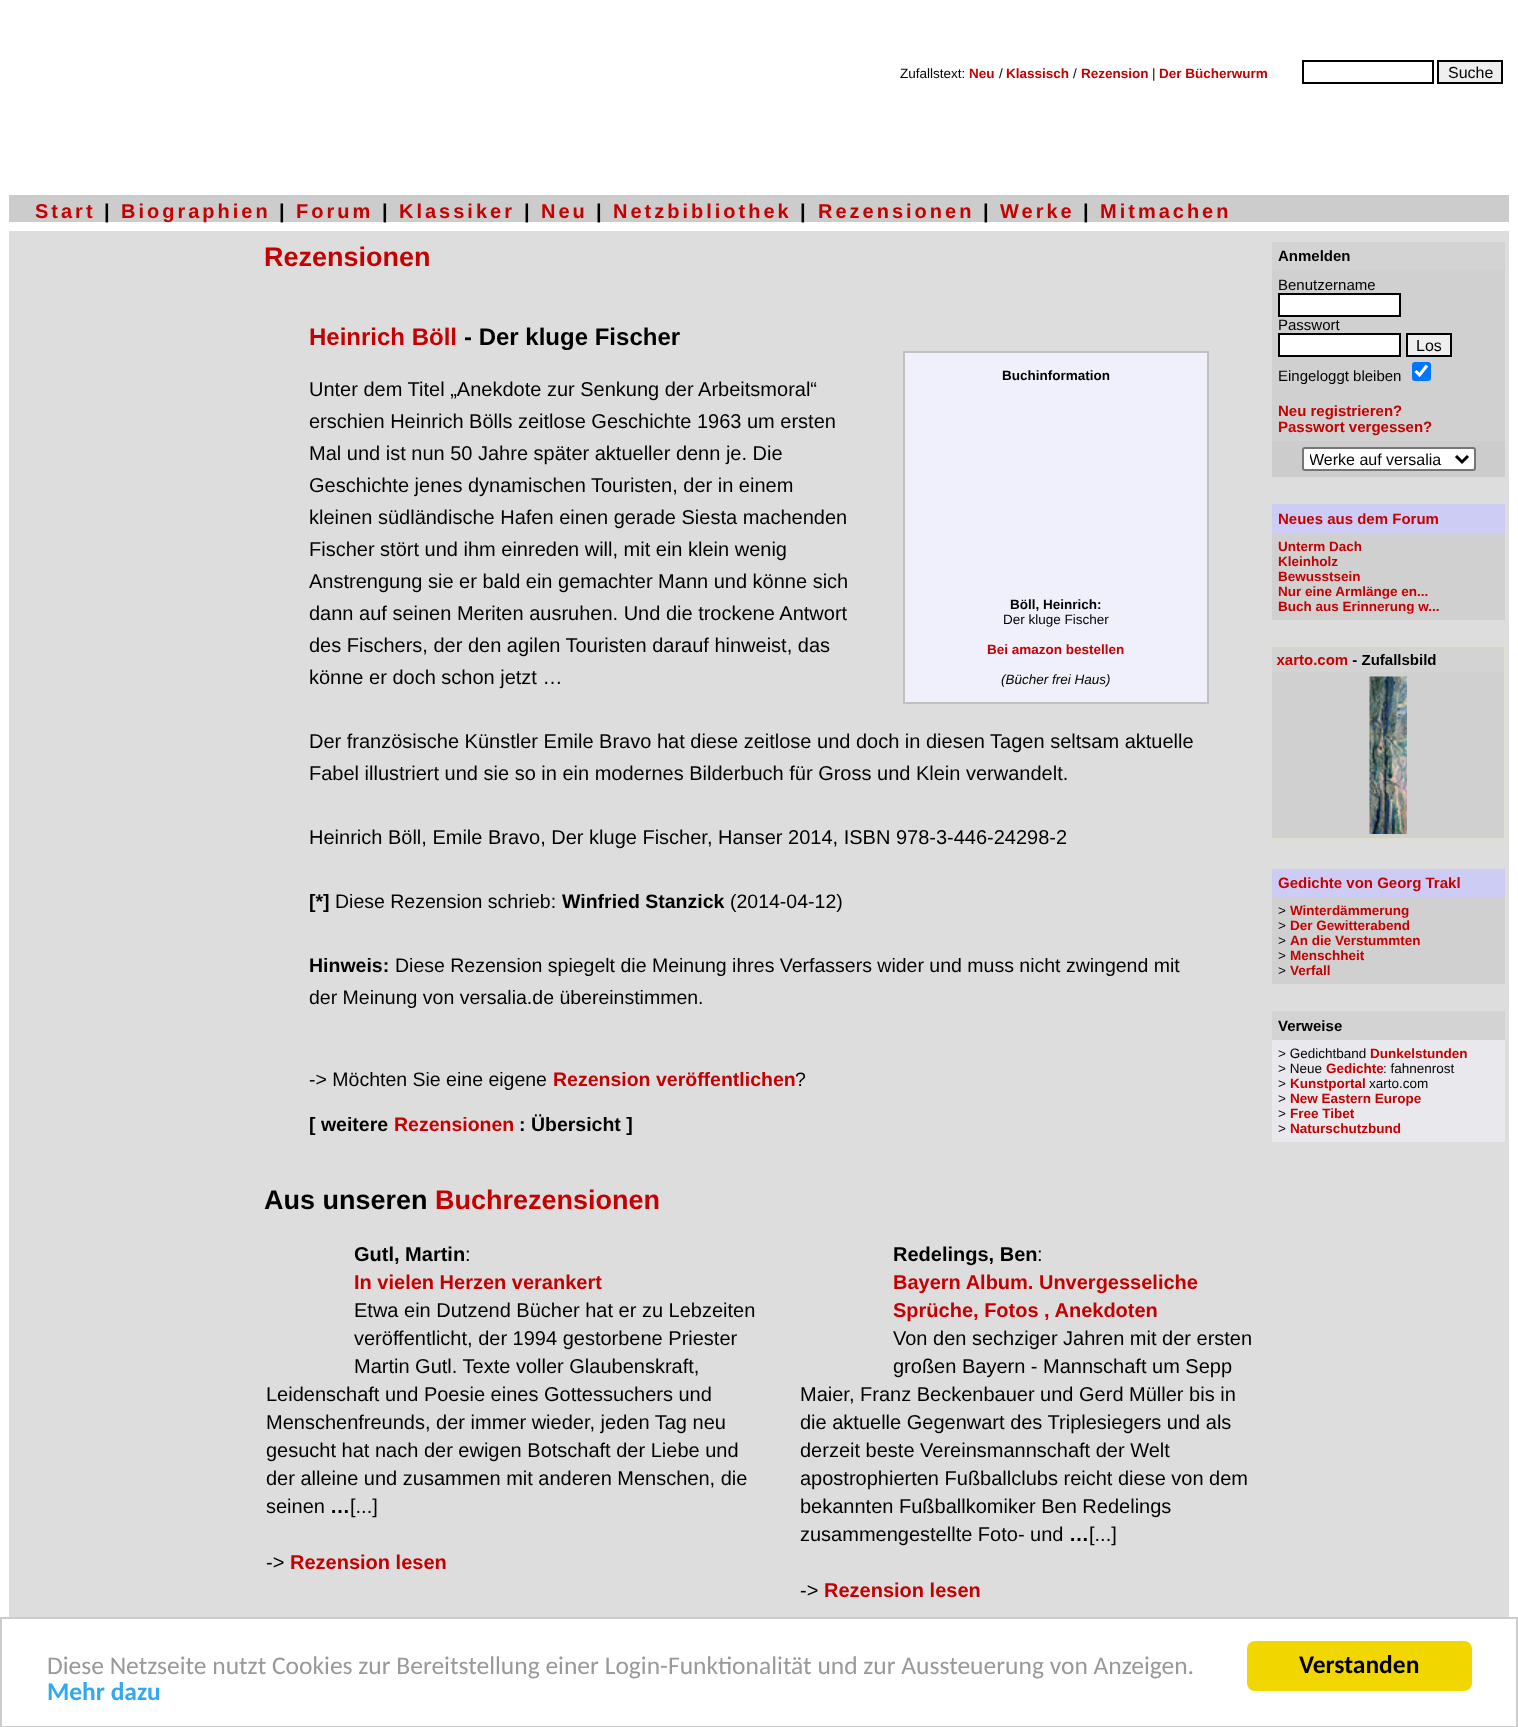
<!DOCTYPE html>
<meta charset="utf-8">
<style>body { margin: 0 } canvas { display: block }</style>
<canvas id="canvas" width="1518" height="1727"></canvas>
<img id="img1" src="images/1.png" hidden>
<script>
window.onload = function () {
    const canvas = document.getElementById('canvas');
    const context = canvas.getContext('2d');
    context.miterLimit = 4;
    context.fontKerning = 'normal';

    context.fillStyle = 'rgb(255, 255, 255)';
    context.fillRect(0, 0, 1518, 1727);
    context.strokeStyle = 'rgb(0, 0, 0)';
    context.lineWidth = 2;
    context.strokeRect(1303, 61, 130, 22);
    context.fillStyle = 'rgb(239, 239, 239)';
    context.beginPath();
    context.rect(1438, 61, 64, 22);
    context.fill();
    context.stroke();
    context.fillStyle = 'rgb(204, 204, 204)';
    context.fillRect(9, 195, 1500, 27);
    context.fillStyle = 'rgb(221, 221, 221)';
    context.fillRect(9, 231, 1500, 1386);
    context.fillStyle = 'rgb(240, 240, 252)';
    context.beginPath();
    context.rect(904, 352, 304, 351);
    context.fill();
    context.strokeStyle = 'rgb(192, 192, 192)';
    context.stroke();
    context.fillStyle = 'rgb(211, 211, 211)';
    context.fillRect(1272, 242, 233, 28);
    context.fillStyle = 'rgb(208, 208, 208)';
    context.fillRect(1272, 270, 233, 171);
    context.fillStyle = 'rgb(255, 255, 255)';
    context.beginPath();
    context.rect(1279, 294, 121, 22);
    context.fill();
    context.strokeStyle = 'rgb(0, 0, 0)';
    context.stroke();
    context.beginPath();
    context.rect(1279, 334, 121, 22);
    context.fill();
    context.stroke();
    context.fillStyle = 'rgb(239, 239, 239)';
    context.beginPath();
    context.rect(1407, 334, 44, 22);
    context.fill();
    context.stroke();
    context.fillStyle = 'rgb(0, 117, 255)';
    context.beginPath();
    context.roundRect(1412, 362, 19, 19, 3);
    context.fill();
    context.beginPath();
    context.moveTo(1415.5, 371);
    context.lineTo(1419.5, 375);
    context.lineTo(1427, 365.5);
    context.strokeStyle = 'rgb(255, 255, 255)';
    context.lineWidth = 3.1;
    context.stroke();
    context.fillStyle = 'rgb(204, 204, 204)';
    context.fillRect(1272, 441, 233, 36);
    context.fillStyle = 'rgb(255, 255, 255)';
    context.beginPath();
    context.roundRect(1303, 448, 172, 22, 2);
    context.fill();
    context.strokeStyle = 'rgb(118, 118, 118)';
    context.lineWidth = 2;
    context.stroke();
    context.beginPath();
    context.moveTo(1456, 456);
    context.lineTo(1462, 462);
    context.lineTo(1468, 456);
    context.strokeStyle = 'rgb(0, 0, 0)';
    context.lineWidth = 3;
    context.stroke();
    context.fillStyle = 'rgb(205, 204, 245)';
    context.fillRect(1272, 504, 233, 29);
    context.fillStyle = 'rgb(208, 208, 208)';
    context.fillRect(1272, 533, 233, 87);
    context.drawImage(document.getElementById('img1'), 1272, 646, 233, 193);
    context.fillStyle = 'rgb(205, 204, 245)';
    context.fillRect(1272, 869, 233, 28);
    context.fillStyle = 'rgb(208, 208, 208)';
    context.fillRect(1272, 897, 233, 87);
    context.fillStyle = 'rgb(211, 211, 211)';
    context.fillRect(1272, 1011, 233, 29);
    context.fillStyle = 'rgb(233, 233, 237)';
    context.fillRect(1272, 1040, 233, 102);
    context.strokeStyle = 'rgb(204, 204, 204)';
    context.lineWidth = 2;
    context.strokeRect(1, 1618, 1516, 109);
    context.fillStyle = 'rgb(241, 214, 0)';
    context.beginPath();
    context.roundRect(1247, 1641, 225, 50, 8);
    context.fill();
    context.font = '13.5px Liberation Sans';
    context.fillStyle = 'rgb(0, 0, 0)';
    context.fillText('Zufallstext:', 900, 78);
    context.font = 'bold 13.5px Liberation Sans';
    context.fillStyle = 'rgb(196, 0, 0)';
    context.fillText('Neu', 969, 78);
    context.font = '13.5px Liberation Sans';
    context.fillStyle = 'rgb(0, 0, 0)';
    context.fillText('/', 999, 78);
    context.font = 'bold 13.5px Liberation Sans';
    context.fillStyle = 'rgb(196, 0, 0)';
    context.fillText('Klassisch', 1006, 78);
    context.font = '13.5px Liberation Sans';
    context.fillStyle = 'rgb(0, 0, 0)';
    context.fillText('/', 1073, 78);
    context.font = 'bold 13.5px Liberation Sans';
    context.fillStyle = 'rgb(196, 0, 0)';
    context.fillText('Rezension', 1081, 78);
    context.font = '13.5px Liberation Sans';
    context.fillStyle = 'rgb(0, 0, 0)';
    context.fillText('|', 1152, 78);
    context.font = 'bold 13.5px Liberation Sans';
    context.fillStyle = 'rgb(196, 0, 0)';
    context.fillText('Der Bücherwurm', 1159, 78);
    context.font = '16px Liberation Sans';
    context.fillStyle = 'rgb(0, 0, 0)';
    context.fillText('Suche', 1448, 78);
    context.letterSpacing = '3px';
    context.font = 'bold 20px Liberation Sans';
    context.fillStyle = 'rgb(196, 0, 0)';
    context.fillText('Start', 35, 218);
    context.fillStyle = 'rgb(0, 0, 0)';
    context.fillText('|', 104, 218);
    context.fillStyle = 'rgb(196, 0, 0)';
    context.fillText('Biographien', 121, 218);
    context.fillStyle = 'rgb(0, 0, 0)';
    context.fillText('|', 279, 218);
    context.fillStyle = 'rgb(196, 0, 0)';
    context.fillText('Forum', 296, 218);
    context.fillStyle = 'rgb(0, 0, 0)';
    context.fillText('|', 382, 218);
    context.fillStyle = 'rgb(196, 0, 0)';
    context.fillText('Klassiker', 399, 218);
    context.fillStyle = 'rgb(0, 0, 0)';
    context.fillText('|', 524, 218);
    context.fillStyle = 'rgb(196, 0, 0)';
    context.fillText('Neu', 541, 218);
    context.fillStyle = 'rgb(0, 0, 0)';
    context.fillText('|', 596, 218);
    context.fillStyle = 'rgb(196, 0, 0)';
    context.fillText('Netzbibliothek', 613, 218);
    context.fillStyle = 'rgb(0, 0, 0)';
    context.fillText('|', 800, 218);
    context.fillStyle = 'rgb(196, 0, 0)';
    context.fillText('Rezensionen', 818, 218);
    context.fillStyle = 'rgb(0, 0, 0)';
    context.fillText('|', 983, 218);
    context.fillStyle = 'rgb(196, 0, 0)';
    context.fillText('Werke', 1000, 218);
    context.fillStyle = 'rgb(0, 0, 0)';
    context.fillText('|', 1083, 218);
    context.fillStyle = 'rgb(196, 0, 0)';
    context.fillText('Mitmachen', 1100, 218);
    context.letterSpacing = '0px';
    context.font = 'bold 27px Liberation Sans';
    context.fillText('Rezensionen', 264, 266);
    context.font = 'bold 24px Liberation Sans';
    context.fillText('Heinrich Böll', 309, 345);
    context.fillStyle = 'rgb(0, 0, 0)';
    context.fillText('- Der kluge Fischer', 464, 345);
    context.font = 'bold 13.5px Liberation Sans';
    context.fillText('Buchinformation', 1002, 380);
    context.fillText('Böll, Heinrich:', 1010, 609);
    context.font = '13.5px Liberation Sans';
    context.fillText('Der kluge Fischer', 1003, 624);
    context.font = 'bold 13.5px Liberation Sans';
    context.fillStyle = 'rgb(196, 0, 0)';
    context.fillText('Bei amazon bestellen', 987, 654);
    context.font = 'italic 13.5px Liberation Sans';
    context.fillStyle = 'rgb(0, 0, 0)';
    context.fillText('(Bücher frei Haus)', 1001, 684);
    context.font = '20px Liberation Sans';
    context.fillText('Unter dem Titel „Anekdote zur Senkung der Arbeitsmoral“', 309, 396);
    context.fillText('erschien Heinrich Bölls zeitlose Geschichte 1963 um ersten', 309, 428);
    context.fillText('Mal und ist nun 50 Jahre später aktueller denn je. Die', 309, 460);
    context.fillText('Geschichte jenes dynamischen', 309, 492);
    context.fillText('Touristen, der in einem', 591, 492);
    context.fillText('kleinen südländische Hafen einen gerade Siesta machenden', 309, 524);
    context.fillText('Fischer stört und ihm einreden will, mit ein klein wenig', 309, 556);
    context.fillText('Anstrengung sie er bald ein gemachter Mann und könne sich', 309, 588);
    context.fillText('dann auf seinen Meriten ausruhen. Und die trockene Antwort', 309, 620);
    context.fillText('des Fischers, der den agilen Touristen darauf hinweist, das', 309, 652);
    context.fillText('könne er doch schon jetzt …', 309, 684);
    context.fillText('Der französische Künstler Emile Bravo hat diese zeitlose und doch in diesen Tagen seltsam aktuelle', 309, 748);
    context.fillText('Fabel illustriert und sie so in ein modernes Bilderbuch für Gross und Klein verwandelt.', 309, 780);
    context.fillText('Heinrich Böll, Emile Bravo, Der kluge Fischer, Hanser 2014, ISBN 978-3-446-24298-2', 309, 844);
    context.font = 'bold 19.5px Liberation Sans';
    context.fillText('[*]', 309, 908);
    context.font = '19.5px Liberation Sans';
    context.fillText('Diese Rezension schrieb:', 335, 908);
    context.font = 'bold 19.5px Liberation Sans';
    context.fillText('Winfried Stanzick', 562, 908);
    context.font = '19.5px Liberation Sans';
    context.fillText('(2014-04-12)', 730, 908);
    context.font = 'bold 19.5px Liberation Sans';
    context.fillText('Hinweis:', 309, 972);
    context.font = '19.5px Liberation Sans';
    context.fillText('Diese Rezension spiegelt die Meinung ihres Verfassers wider und muss nicht zwingend mit', 395, 972);
    context.fillText('der Meinung von versalia.de übereinstimmen.', 309, 1004);
    context.fillText('-> Möchten Sie eine eigene', 309, 1086);
    context.font = 'bold 19.5px Liberation Sans';
    context.fillStyle = 'rgb(196, 0, 0)';
    context.fillText('Rezension veröffentlichen', 553, 1086);
    context.font = '19.5px Liberation Sans';
    context.fillStyle = 'rgb(0, 0, 0)';
    context.fillText('?', 795, 1086);
    context.font = 'bold 19.5px Liberation Sans';
    context.fillText('[ weitere', 309, 1131);
    context.fillStyle = 'rgb(196, 0, 0)';
    context.fillText('Rezensionen', 394, 1131);
    context.fillStyle = 'rgb(0, 0, 0)';
    context.fillText(': Übersicht ]', 519, 1131);
    context.font = 'bold 27px Liberation Sans';
    context.fillText('Aus unseren', 264, 1209);
    context.fillStyle = 'rgb(196, 0, 0)';
    context.fillText('Buchrezensionen', 435, 1209);
    context.font = 'bold 20px Liberation Sans';
    context.fillStyle = 'rgb(0, 0, 0)';
    context.fillText('Gutl, Martin', 354, 1261);
    context.font = '20px Liberation Sans';
    context.fillText(':', 465, 1261);
    context.font = 'bold 20px Liberation Sans';
    context.fillStyle = 'rgb(196, 0, 0)';
    context.fillText('In vielen Herzen verankert', 354, 1289);
    context.font = '20px Liberation Sans';
    context.fillStyle = 'rgb(0, 0, 0)';
    context.fillText('Etwa ein Dutzend Bücher hat er zu Lebzeiten', 354, 1317);
    context.fillText('veröffentlicht, der 1994 gestorbene Priester', 354, 1345);
    context.fillText('Martin Gutl. Texte voller Glaubenskraft,', 354, 1373);
    context.fillText('Leidenschaft und Poesie eines Gottessuchers und', 266, 1401);
    context.fillText('Menschenfreunds, der immer wieder, jeden Tag neu', 266, 1429);
    context.fillText('gesucht hat nach der ewigen Botschaft der Liebe und', 266, 1457);
    context.fillText('der alleine und zusammen mit anderen Menschen, die', 266, 1485);
    context.fillText('seinen', 266, 1513);
    context.font = 'bold 20px Liberation Sans';
    context.fillText('…', 330, 1513);
    context.font = '20px Liberation Sans';
    context.fillText('[...]', 350, 1513);
    context.fillText('->', 266, 1569);
    context.font = 'bold 20px Liberation Sans';
    context.fillStyle = 'rgb(196, 0, 0)';
    context.fillText('Rezension lesen', 290, 1569);
    context.fillStyle = 'rgb(0, 0, 0)';
    context.fillText('Redelings, Ben', 893, 1261);
    context.font = '20px Liberation Sans';
    context.fillText(':', 1037, 1261);
    context.font = 'bold 20px Liberation Sans';
    context.fillStyle = 'rgb(196, 0, 0)';
    context.fillText('Bayern Album. Unvergesseliche', 893, 1289);
    context.fillText('Sprüche, Fotos , Anekdoten', 893, 1317);
    context.font = '20px Liberation Sans';
    context.fillStyle = 'rgb(0, 0, 0)';
    context.fillText('Von den sechziger Jahren mit der ersten', 893, 1345);
    context.fillText('großen Bayern - Mannschaft um Sepp', 893, 1373);
    context.fillText('Maier, Franz Beckenbauer und Gerd Müller bis in', 800, 1401);
    context.fillText('die aktuelle Gegenwart des Triplesiegers und als', 800, 1429);
    context.fillText('derzeit beste Vereinsmannschaft der Welt', 800, 1457);
    context.fillText('apostrophierten Fußballclubs reicht diese von dem', 800, 1485);
    context.fillText('bekannten Fußballkomiker Ben Redelings', 800, 1513);
    context.fillText('zusammengestellte Foto- und', 800, 1541);
    context.font = 'bold 20px Liberation Sans';
    context.fillText('…', 1069, 1541);
    context.font = '20px Liberation Sans';
    context.fillText('[...]', 1089, 1541);
    context.fillText('->', 800, 1597);
    context.font = 'bold 20px Liberation Sans';
    context.fillStyle = 'rgb(196, 0, 0)';
    context.fillText('Rezension lesen', 824, 1597);
    context.font = 'bold 15px Liberation Sans';
    context.fillStyle = 'rgb(0, 0, 0)';
    context.fillText('Anmelden', 1278, 261);
    context.font = '15px Liberation Sans';
    context.fillText('Benutzername', 1278, 290);
    context.fillText('Passwort', 1278, 330);
    context.font = '16px Liberation Sans';
    context.fillText('Los', 1416, 351);
    context.font = '15px Liberation Sans';
    context.fillText('Eingeloggt bleiben', 1278, 381);
    context.font = 'bold 15px Liberation Sans';
    context.fillStyle = 'rgb(196, 0, 0)';
    context.fillText('Neu registrieren?', 1278, 416);
    context.fillText('Passwort vergessen?', 1278, 432);
    context.save();
    context.beginPath();
    context.rect(1310, 449, 141, 21);
    context.clip();
    context.font = '16px Liberation Sans';
    context.fillStyle = 'rgb(0, 0, 0)';
    context.fillText('Werke auf versalia', 1309, 465);
    context.restore();
    context.fillText('Neues aus dem Forum', 1278, 524);
    context.font = 'bold 13.5px Liberation Sans';
    context.fillText('Unterm Dach', 1278, 551);
    context.fillText('Kleinholz', 1278, 566);
    context.fillText('Bewusstsein', 1278, 581);
    context.fillText('Nur eine Armlänge en...', 1278, 596);
    context.fillText('Buch aus Erinnerung w...', 1278, 611);
    context.font = 'bold 15px Liberation Sans';
    context.fillText('Gedichte von Georg Trakl', 1278, 888);
    context.font = '13.5px Liberation Sans';
    context.fillStyle = 'rgb(0, 0, 0)';
    context.fillText('>', 1278, 915);
    context.font = 'bold 13.5px Liberation Sans';
    context.fillStyle = 'rgb(196, 0, 0)';
    context.fillText('Winterdämmerung', 1290, 915);
    context.font = '13.5px Liberation Sans';
    context.fillStyle = 'rgb(0, 0, 0)';
    context.fillText('>', 1278, 930);
    context.font = 'bold 13.5px Liberation Sans';
    context.fillStyle = 'rgb(196, 0, 0)';
    context.fillText('Der Gewitterabend', 1290, 930);
    context.font = '13.5px Liberation Sans';
    context.fillStyle = 'rgb(0, 0, 0)';
    context.fillText('>', 1278, 945);
    context.font = 'bold 13.5px Liberation Sans';
    context.fillStyle = 'rgb(196, 0, 0)';
    context.fillText('An die Verstummten', 1290, 945);
    context.font = '13.5px Liberation Sans';
    context.fillStyle = 'rgb(0, 0, 0)';
    context.fillText('>', 1278, 960);
    context.font = 'bold 13.5px Liberation Sans';
    context.fillStyle = 'rgb(196, 0, 0)';
    context.fillText('Menschheit', 1290, 960);
    context.font = '13.5px Liberation Sans';
    context.fillStyle = 'rgb(0, 0, 0)';
    context.fillText('>', 1278, 975);
    context.font = 'bold 13.5px Liberation Sans';
    context.fillStyle = 'rgb(196, 0, 0)';
    context.fillText('Verfall', 1290, 975);
    context.font = 'bold 15px Liberation Sans';
    context.fillStyle = 'rgb(0, 0, 0)';
    context.fillText('Verweise', 1278, 1031);
    context.font = '13.5px Liberation Sans';
    context.fillText('> Gedichtband', 1278, 1058);
    context.font = 'bold 13.5px Liberation Sans';
    context.fillStyle = 'rgb(196, 0, 0)';
    context.fillText('Dunkelstunden', 1370, 1058);
    context.font = '13.5px Liberation Sans';
    context.fillStyle = 'rgb(0, 0, 0)';
    context.fillText('> Neue', 1278, 1073);
    context.font = 'bold 13.5px Liberation Sans';
    context.fillStyle = 'rgb(196, 0, 0)';
    context.fillText('Gedichte', 1326, 1073);
    context.font = '13.5px Liberation Sans';
    context.fillStyle = 'rgb(0, 0, 0)';
    context.fillText(': fahnenrost', 1383, 1073);
    context.fillText('>', 1278, 1088);
    context.font = 'bold 13.5px Liberation Sans';
    context.fillStyle = 'rgb(196, 0, 0)';
    context.fillText('Kunstportal', 1290, 1088);
    context.font = '13.5px Liberation Sans';
    context.fillStyle = 'rgb(0, 0, 0)';
    context.fillText('xarto.com', 1369, 1088);
    context.fillText('>', 1278, 1103);
    context.font = 'bold 13.5px Liberation Sans';
    context.fillStyle = 'rgb(196, 0, 0)';
    context.fillText('New Eastern Europe', 1290, 1103);
    context.font = '13.5px Liberation Sans';
    context.fillStyle = 'rgb(0, 0, 0)';
    context.fillText('>', 1278, 1118);
    context.font = 'bold 13.5px Liberation Sans';
    context.fillStyle = 'rgb(196, 0, 0)';
    context.fillText('Free Tibet', 1290, 1118);
    context.font = '13.5px Liberation Sans';
    context.fillStyle = 'rgb(0, 0, 0)';
    context.fillText('>', 1278, 1133);
    context.font = 'bold 13.5px Liberation Sans';
    context.fillStyle = 'rgb(196, 0, 0)';
    context.fillText('Naturschutzbund', 1290, 1133);
    context.font = '25.5px Carlito';
    context.fillStyle = 'rgb(153, 153, 153)';
    context.fillText('Diese Netzseite nutzt Cookies zur Bereitstellung einer Login-Funktionalität und zur Aussteuerung von Anzeigen.', 47, 1674);
    context.font = 'bold 25.5px Carlito';
    context.fillStyle = 'rgb(49, 168, 240)';
    context.fillText('Mehr dazu', 47, 1700);
    context.fillStyle = 'rgb(0, 0, 0)';
    context.fillText('Verstanden', 1299, 1673);
};
</script>
